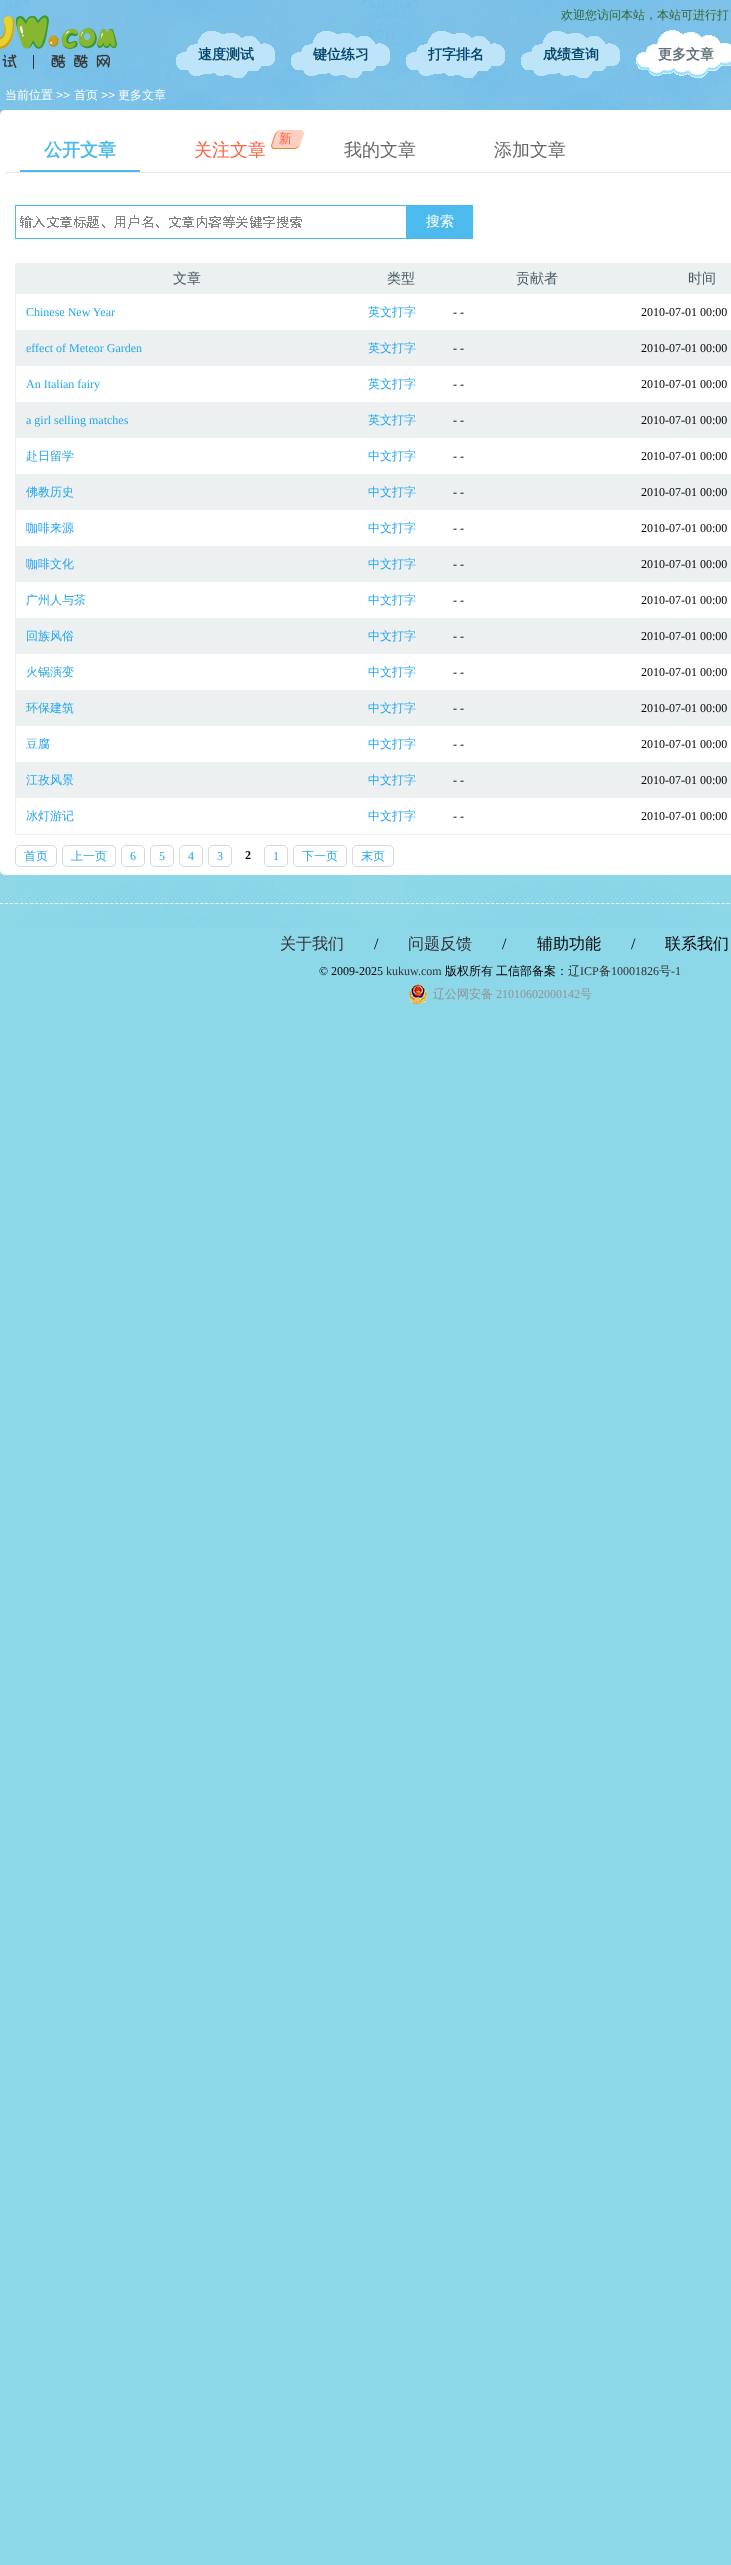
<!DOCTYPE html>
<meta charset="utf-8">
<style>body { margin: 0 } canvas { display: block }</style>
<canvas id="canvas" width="731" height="2565"></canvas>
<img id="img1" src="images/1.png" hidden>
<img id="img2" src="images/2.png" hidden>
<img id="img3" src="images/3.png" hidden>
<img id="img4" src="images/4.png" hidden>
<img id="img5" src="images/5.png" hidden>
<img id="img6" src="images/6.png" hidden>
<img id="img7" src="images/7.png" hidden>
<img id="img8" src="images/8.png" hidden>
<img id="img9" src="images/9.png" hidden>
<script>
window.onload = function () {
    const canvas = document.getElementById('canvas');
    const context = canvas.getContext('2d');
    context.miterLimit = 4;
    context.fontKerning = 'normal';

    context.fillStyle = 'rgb(140, 215, 232)';
    context.fillRect(0, 0, 731, 2565);
    context.drawImage(document.getElementById('img1'), 0, 0, 731, 928);
    context.drawImage(document.getElementById('img2'), 0, 15, 117, 54);
    context.drawImage(document.getElementById('img3'), 176, 31, 99, 47);
    context.drawImage(document.getElementById('img4'), 291, 31, 99, 47);
    context.drawImage(document.getElementById('img5'), 406, 31, 99, 47);
    context.drawImage(document.getElementById('img6'), 521, 31, 99, 47);
    context.drawImage(document.getElementById('img7'), 636, 30, 95, 48);
    context.fillStyle = 'rgb(255, 255, 255)';
    context.beginPath();
    context.roundRect(0, 110, 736, 765, 5);
    context.fill();
    context.fillStyle = 'rgb(232, 232, 232)';
    context.fillRect(5, 172, 726, 1);
    context.fillStyle = 'rgb(76, 186, 237)';
    context.fillRect(20, 170, 120, 2);
    context.fillStyle = 'rgb(254, 208, 195)';
    context.beginPath();
    context.moveTo(281.5, 130);
    context.lineTo(300.5, 130);
    context.bezierCurveTo(303, 130, 304.5, 132, 303.5, 135);
    context.lineTo(300.5, 144);
    context.bezierCurveTo(299.5, 147, 296.5, 149, 293.5, 149);
    context.lineTo(274.5, 149);
    context.bezierCurveTo(272, 149, 270.5, 147, 271.5, 144);
    context.lineTo(274.5, 135);
    context.bezierCurveTo(275.5, 132, 278.5, 130, 281.5, 130);
    context.closePath();
    context.fill();
    context.fillStyle = 'rgb(227, 134, 49)';
    context.beginPath();
    context.moveTo(281.5, 130);
    context.lineTo(300.5, 130);
    context.bezierCurveTo(303, 130, 304.5, 132, 303.5, 135);
    context.lineTo(300.5, 144);
    context.bezierCurveTo(299.5, 147, 296.5, 149, 293.5, 149);
    context.lineTo(274.5, 149);
    context.bezierCurveTo(272, 149, 270.5, 147, 271.5, 144);
    context.lineTo(274.5, 135);
    context.bezierCurveTo(275.5, 132, 278.5, 130, 281.5, 130);
    context.closePath();
    context.moveTo(281.5, 130);
    context.lineTo(300.5, 130);
    context.bezierCurveTo(303, 130, 304.5, 132, 303.5, 135);
    context.lineTo(300.5, 144);
    context.bezierCurveTo(299.5, 146, 296.5, 148, 294, 148);
    context.lineTo(275, 148);
    context.bezierCurveTo(272.5, 148, 271.5, 146, 272.5, 144);
    context.lineTo(275.5, 135);
    context.bezierCurveTo(276.5, 132, 279, 130, 281.5, 130);
    context.closePath();
    context.fill('evenodd');
    context.drawImage(document.getElementById('img8'), 20, 215, 282, 14);
    context.strokeStyle = 'rgb(76, 186, 237)';
    context.strokeRect(15.5, 205.5, 391, 33);
    context.fillStyle = 'rgb(76, 186, 237)';
    context.fillRect(407, 205, 66, 34);
    context.strokeStyle = 'rgb(236, 240, 241)';
    context.strokeRect(15.5, 263.5, 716, 571);
    context.fillStyle = 'rgb(236, 240, 241)';
    context.fillRect(16, 264, 715, 30);
    context.fillRect(16, 330, 427, 36);
    context.fillRect(443, 330, 288, 36);
    context.fillRect(16, 402, 427, 36);
    context.fillRect(443, 402, 288, 36);
    context.fillRect(16, 474, 427, 36);
    context.fillRect(443, 474, 288, 36);
    context.fillRect(16, 546, 427, 36);
    context.fillRect(443, 546, 288, 36);
    context.fillRect(16, 618, 427, 36);
    context.fillRect(443, 618, 288, 36);
    context.fillRect(16, 690, 427, 36);
    context.fillRect(443, 690, 288, 36);
    context.fillRect(16, 762, 427, 36);
    context.fillRect(443, 762, 288, 36);
    context.beginPath();
    context.roundRect(15.5, 845.5, 41, 21, 4.5);
    context.strokeStyle = 'rgb(216, 216, 216)';
    context.stroke();
    context.beginPath();
    context.roundRect(62.5, 845.5, 53, 21, 4.5);
    context.stroke();
    context.beginPath();
    context.roundRect(121.5, 845.5, 23, 21, 4.5);
    context.stroke();
    context.beginPath();
    context.roundRect(150.5, 845.5, 23, 21, 4.5);
    context.stroke();
    context.beginPath();
    context.roundRect(179.5, 845.5, 23, 21, 4.5);
    context.stroke();
    context.beginPath();
    context.roundRect(208.5, 845.5, 23, 21, 4.5);
    context.stroke();
    context.beginPath();
    context.roundRect(264.5, 845.5, 23, 21, 4.5);
    context.stroke();
    context.beginPath();
    context.roundRect(293.5, 845.5, 53, 21, 4.5);
    context.stroke();
    context.beginPath();
    context.roundRect(352.5, 845.5, 41, 21, 4.5);
    context.stroke();
    context.beginPath();
    context.moveTo(0, 903.5);
    context.lineTo(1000, 903.5);
    context.strokeStyle = 'rgb(255, 255, 255)';
    context.setLineDash([3, 2.01]);
    context.stroke();
    context.drawImage(document.getElementById('img9'), 409, 984, 18, 20);
    context.font = '500 12px WenQuanYi Zen Hei';
    context.fillStyle = 'rgb(51, 102, 51)';
    context.fillText('欢迎您访问本站，本站可进行打', 561, 19);
    context.font = 'bold 14px WenQuanYi Zen Hei';
    context.fillStyle = 'rgb(6, 71, 107)';
    context.fillText('速度测试', 198, 59);
    context.fillText('键位练习', 313, 59);
    context.fillText('打字排名', 428, 59);
    context.fillText('成绩查询', 543, 59);
    context.fillStyle = 'rgb(96, 112, 120)';
    context.fillText('更多文章', 658, 59);
    context.font = '500 12px WenQuanYi Zen Hei';
    context.fillStyle = 'rgb(255, 255, 255)';
    context.fillText('当前位置', 5, 99);
    context.font = '12px Liberation Sans';
    context.fillText('>>', 56, 99);
    context.font = '500 12px WenQuanYi Zen Hei';
    context.fillText('首页', 74, 99);
    context.font = '12px Liberation Sans';
    context.fillText('>>', 101, 99);
    context.font = '500 12px WenQuanYi Zen Hei';
    context.fillText('更多文章', 118, 99);
    context.font = 'bold 18px WenQuanYi Zen Hei';
    context.fillStyle = 'rgb(76, 186, 237)';
    context.fillText('公开文章', 44, 156);
    context.letterSpacing = '-1px';
    context.font = '500 13px WenQuanYi Zen Hei';
    context.fillStyle = 'rgb(255, 94, 65)';
    context.fillText('新', 279, 143);
    context.letterSpacing = '0px';
    context.font = '500 18px WenQuanYi Zen Hei';
    context.fillText('关注文章', 194, 156);
    context.fillStyle = 'rgb(102, 102, 102)';
    context.fillText('我的文章', 344, 156);
    context.fillText('添加文章', 494, 156);
    context.font = '500 14px WenQuanYi Zen Hei';
    context.fillStyle = 'rgb(255, 255, 255)';
    context.fillText('搜索', 426, 226);
    context.fillStyle = 'rgb(73, 91, 101)';
    context.fillText('文章', 173, 283);
    context.fillText('类型', 387, 283);
    context.fillText('贡献者', 516, 283);
    context.fillText('时间', 688, 283);
    context.font = '12px Liberation Serif';
    context.fillStyle = 'rgb(37, 166, 239)';
    context.fillText('Chinese New Year', 26, 316);
    context.font = '500 12px WenQuanYi Zen Hei';
    context.fillText('英文打字', 368, 316);
    context.font = '12px Liberation Serif';
    context.fillStyle = 'rgb(0, 0, 0)';
    context.fillText('- -', 453, 316);
    context.fillText('2010-07-01 00:00', 641, 316);
    context.fillStyle = 'rgb(37, 166, 239)';
    context.fillText('effect of Meteor Garden', 26, 352);
    context.font = '500 12px WenQuanYi Zen Hei';
    context.fillText('英文打字', 368, 352);
    context.font = '12px Liberation Serif';
    context.fillStyle = 'rgb(0, 0, 0)';
    context.fillText('- -', 453, 352);
    context.fillText('2010-07-01 00:00', 641, 352);
    context.fillStyle = 'rgb(37, 166, 239)';
    context.fillText('An Italian fairy', 26, 388);
    context.font = '500 12px WenQuanYi Zen Hei';
    context.fillText('英文打字', 368, 388);
    context.font = '12px Liberation Serif';
    context.fillStyle = 'rgb(0, 0, 0)';
    context.fillText('- -', 453, 388);
    context.fillText('2010-07-01 00:00', 641, 388);
    context.fillStyle = 'rgb(37, 166, 239)';
    context.fillText('a girl selling matches', 26, 424);
    context.font = '500 12px WenQuanYi Zen Hei';
    context.fillText('英文打字', 368, 424);
    context.font = '12px Liberation Serif';
    context.fillStyle = 'rgb(0, 0, 0)';
    context.fillText('- -', 453, 424);
    context.fillText('2010-07-01 00:00', 641, 424);
    context.font = '500 12px WenQuanYi Zen Hei';
    context.fillStyle = 'rgb(37, 166, 239)';
    context.fillText('赴日留学', 26, 460);
    context.fillText('中文打字', 368, 460);
    context.font = '12px Liberation Serif';
    context.fillStyle = 'rgb(0, 0, 0)';
    context.fillText('- -', 453, 460);
    context.fillText('2010-07-01 00:00', 641, 460);
    context.font = '500 12px WenQuanYi Zen Hei';
    context.fillStyle = 'rgb(37, 166, 239)';
    context.fillText('佛教历史', 26, 496);
    context.fillText('中文打字', 368, 496);
    context.font = '12px Liberation Serif';
    context.fillStyle = 'rgb(0, 0, 0)';
    context.fillText('- -', 453, 496);
    context.fillText('2010-07-01 00:00', 641, 496);
    context.font = '500 12px WenQuanYi Zen Hei';
    context.fillStyle = 'rgb(37, 166, 239)';
    context.fillText('咖啡来源', 26, 532);
    context.fillText('中文打字', 368, 532);
    context.font = '12px Liberation Serif';
    context.fillStyle = 'rgb(0, 0, 0)';
    context.fillText('- -', 453, 532);
    context.fillText('2010-07-01 00:00', 641, 532);
    context.font = '500 12px WenQuanYi Zen Hei';
    context.fillStyle = 'rgb(37, 166, 239)';
    context.fillText('咖啡文化', 26, 568);
    context.fillText('中文打字', 368, 568);
    context.font = '12px Liberation Serif';
    context.fillStyle = 'rgb(0, 0, 0)';
    context.fillText('- -', 453, 568);
    context.fillText('2010-07-01 00:00', 641, 568);
    context.font = '500 12px WenQuanYi Zen Hei';
    context.fillStyle = 'rgb(37, 166, 239)';
    context.fillText('广州人与茶', 26, 604);
    context.fillText('中文打字', 368, 604);
    context.font = '12px Liberation Serif';
    context.fillStyle = 'rgb(0, 0, 0)';
    context.fillText('- -', 453, 604);
    context.fillText('2010-07-01 00:00', 641, 604);
    context.font = '500 12px WenQuanYi Zen Hei';
    context.fillStyle = 'rgb(37, 166, 239)';
    context.fillText('回族风俗', 26, 640);
    context.fillText('中文打字', 368, 640);
    context.font = '12px Liberation Serif';
    context.fillStyle = 'rgb(0, 0, 0)';
    context.fillText('- -', 453, 640);
    context.fillText('2010-07-01 00:00', 641, 640);
    context.font = '500 12px WenQuanYi Zen Hei';
    context.fillStyle = 'rgb(37, 166, 239)';
    context.fillText('火锅演变', 26, 676);
    context.fillText('中文打字', 368, 676);
    context.font = '12px Liberation Serif';
    context.fillStyle = 'rgb(0, 0, 0)';
    context.fillText('- -', 453, 676);
    context.fillText('2010-07-01 00:00', 641, 676);
    context.font = '500 12px WenQuanYi Zen Hei';
    context.fillStyle = 'rgb(37, 166, 239)';
    context.fillText('环保建筑', 26, 712);
    context.fillText('中文打字', 368, 712);
    context.font = '12px Liberation Serif';
    context.fillStyle = 'rgb(0, 0, 0)';
    context.fillText('- -', 453, 712);
    context.fillText('2010-07-01 00:00', 641, 712);
    context.font = '500 12px WenQuanYi Zen Hei';
    context.fillStyle = 'rgb(37, 166, 239)';
    context.fillText('豆腐', 26, 748);
    context.fillText('中文打字', 368, 748);
    context.font = '12px Liberation Serif';
    context.fillStyle = 'rgb(0, 0, 0)';
    context.fillText('- -', 453, 748);
    context.fillText('2010-07-01 00:00', 641, 748);
    context.font = '500 12px WenQuanYi Zen Hei';
    context.fillStyle = 'rgb(37, 166, 239)';
    context.fillText('江孜风景', 26, 784);
    context.fillText('中文打字', 368, 784);
    context.font = '12px Liberation Serif';
    context.fillStyle = 'rgb(0, 0, 0)';
    context.fillText('- -', 453, 784);
    context.fillText('2010-07-01 00:00', 641, 784);
    context.font = '500 12px WenQuanYi Zen Hei';
    context.fillStyle = 'rgb(37, 166, 239)';
    context.fillText('冰灯游记', 26, 820);
    context.fillText('中文打字', 368, 820);
    context.font = '12px Liberation Serif';
    context.fillStyle = 'rgb(0, 0, 0)';
    context.fillText('- -', 453, 820);
    context.fillText('2010-07-01 00:00', 641, 820);
    context.font = '500 12px WenQuanYi Zen Hei';
    context.fillStyle = 'rgb(37, 166, 239)';
    context.fillText('首页', 24, 860);
    context.fillText('上一页', 71, 860);
    context.font = '12px Liberation Serif';
    context.fillText('6', 130, 860);
    context.fillText('5', 159, 860);
    context.fillText('4', 188, 860);
    context.fillText('3', 217, 860);
    context.font = 'bold 12px Liberation Serif';
    context.fillStyle = 'rgb(0, 0, 0)';
    context.fillText('2', 245, 859);
    context.font = '12px Liberation Serif';
    context.fillStyle = 'rgb(37, 166, 239)';
    context.fillText('1', 273, 860);
    context.font = '500 12px WenQuanYi Zen Hei';
    context.fillText('下一页', 302, 860);
    context.fillText('末页', 361, 860);
    context.font = '500 16px WenQuanYi Zen Hei';
    context.fillStyle = 'rgb(51, 51, 51)';
    context.fillText('关于我们', 280, 949);
    context.font = '16px Liberation Serif';
    context.fillStyle = 'rgb(0, 0, 0)';
    context.fillText('/', 374, 949);
    context.font = '500 16px WenQuanYi Zen Hei';
    context.fillStyle = 'rgb(51, 51, 51)';
    context.fillText('问题反馈', 408, 949);
    context.font = '16px Liberation Serif';
    context.fillStyle = 'rgb(0, 0, 0)';
    context.fillText('/', 502, 949);
    context.font = '500 16px WenQuanYi Zen Hei';
    context.fillText('辅助功能', 537, 949);
    context.font = '16px Liberation Serif';
    context.fillText('/', 631, 949);
    context.font = '500 16px WenQuanYi Zen Hei';
    context.fillText('联系我们', 665, 949);
    context.font = '12px Liberation Serif';
    context.fillText('© 2009-2025', 319, 975);
    context.fillStyle = 'rgb(51, 51, 51)';
    context.fillText('kukuw.com', 386, 975);
    context.font = '500 12px WenQuanYi Zen Hei';
    context.fillStyle = 'rgb(0, 0, 0)';
    context.fillText('版权所有', 445, 975);
    context.fillText('工信部备案：', 496, 975);
    context.fillStyle = 'rgb(51, 51, 51)';
    context.fillText('辽', 568, 975);
    context.font = '12px Liberation Serif';
    context.fillText('ICP', 580, 975);
    context.font = '500 12px WenQuanYi Zen Hei';
    context.fillText('备', 599, 975);
    context.font = '12px Liberation Serif';
    context.fillText('10001826', 611, 975);
    context.font = '500 12px WenQuanYi Zen Hei';
    context.fillText('号', 659, 975);
    context.font = '12px Liberation Serif';
    context.fillText('-1', 671, 975);
    context.font = '500 12px WenQuanYi Zen Hei';
    context.fillStyle = 'rgb(147, 147, 147)';
    context.fillText('辽公网安备', 433, 998);
    context.font = '12px Liberation Serif';
    context.fillText('21010602000142', 496, 998);
    context.font = '500 12px WenQuanYi Zen Hei';
    context.fillText('号', 580, 998);
};
</script>
